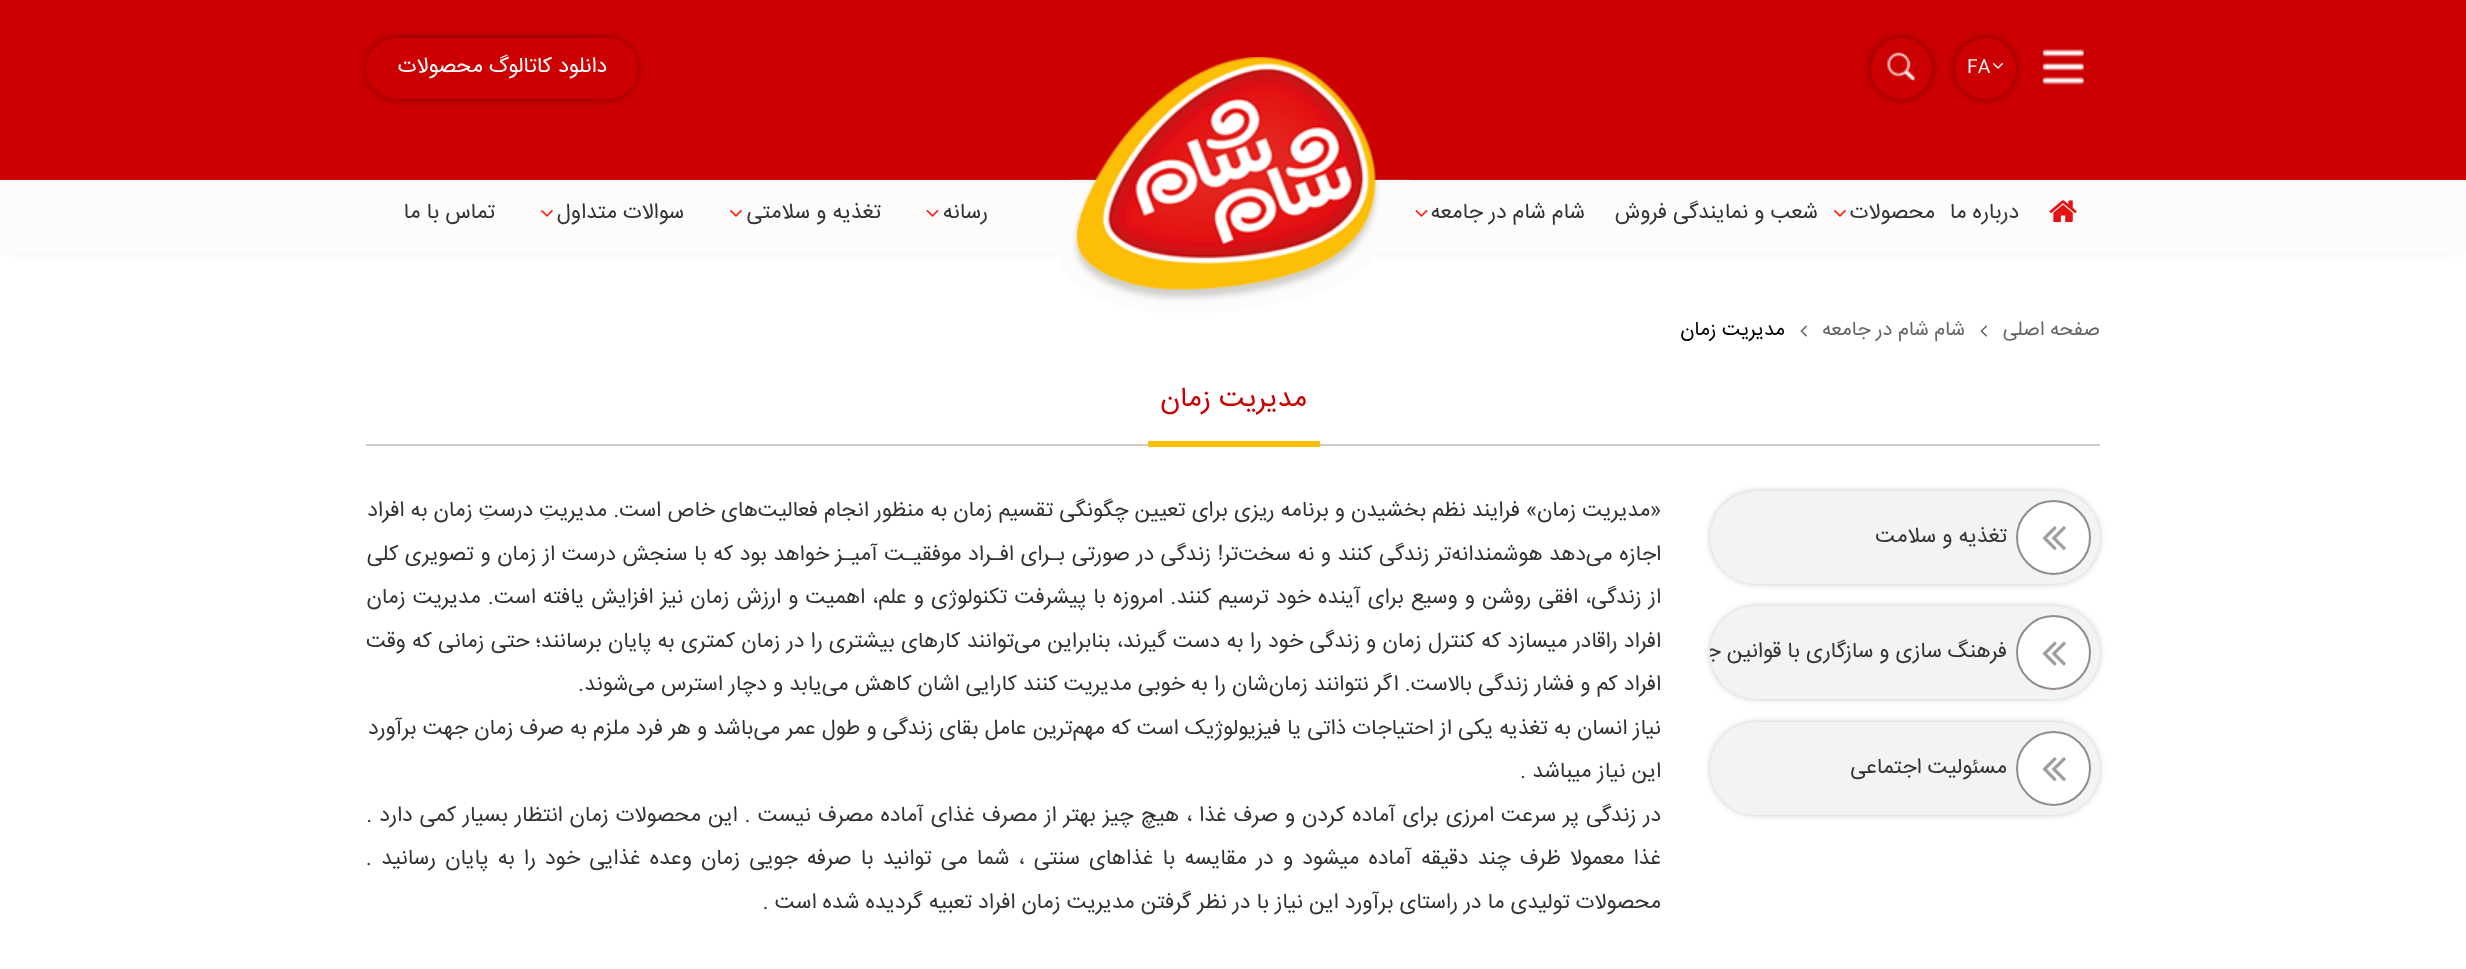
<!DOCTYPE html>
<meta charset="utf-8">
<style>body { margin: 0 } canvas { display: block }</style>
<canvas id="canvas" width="2466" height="969"></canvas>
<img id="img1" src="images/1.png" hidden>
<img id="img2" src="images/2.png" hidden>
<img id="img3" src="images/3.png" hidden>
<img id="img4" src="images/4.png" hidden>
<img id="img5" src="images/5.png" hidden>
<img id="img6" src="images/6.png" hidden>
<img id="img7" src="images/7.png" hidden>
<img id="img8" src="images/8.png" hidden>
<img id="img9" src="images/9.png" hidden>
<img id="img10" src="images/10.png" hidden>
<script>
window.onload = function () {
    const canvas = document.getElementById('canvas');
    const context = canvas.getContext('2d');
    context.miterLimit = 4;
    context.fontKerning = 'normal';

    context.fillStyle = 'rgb(255, 255, 255)';
    context.fillRect(0, 0, 2466, 969);
    context.fillStyle = 'rgba(0, 0, 0, 0.5)';
    context.filter = 'blur(6px)';
    context.beginPath();
    context.rect(11, 194, 2445, 52);
    context.fill();
    context.filter = 'none';
    context.fillStyle = 'rgb(204, 0, 0)';
    context.fillRect(0, 0, 2466, 180);
    context.drawImage(document.getElementById('img1'), 2042, 49, 42, 36);
    context.fillStyle = 'rgba(0, 0, 0, 0.5)';
    context.filter = 'blur(5px)';
    context.beginPath();
    context.roundRect(1956, 39, 59, 59, 29.5);
    context.fill();
    context.filter = 'none';
    context.fillStyle = 'rgb(204, 0, 0)';
    context.beginPath();
    context.arc(1985.5, 68.5, 30.5, 0, 2 * Math.PI);
    context.fill();
    context.drawImage(document.getElementById('img2'), 1992, 63, 11, 6);
    context.fillStyle = 'rgba(0, 0, 0, 0.5)';
    context.filter = 'blur(5px)';
    context.beginPath();
    context.roundRect(1872, 39, 59, 59, 29.5);
    context.fill();
    context.filter = 'none';
    context.fillStyle = 'rgb(204, 0, 0)';
    context.beginPath();
    context.arc(1901.5, 68.5, 30.5, 0, 2 * Math.PI);
    context.fill();
    context.drawImage(document.getElementById('img3'), 1887, 52, 28, 29);
    context.fillStyle = 'rgb(253, 252, 250)';
    context.fillRect(0, 180, 2466, 74);
    context.drawImage(document.getElementById('img4'), 1057, 57, 355, 256);
    context.fillStyle = 'rgba(0, 0, 0, 0.5)';
    context.filter = 'blur(5px)';
    context.beginPath();
    context.roundRect(368, 39, 268, 59, 29.5);
    context.fill();
    context.filter = 'none';
    context.fillStyle = 'rgb(204, 0, 0)';
    context.beginPath();
    context.roundRect(366, 38, 272, 61, 30.5);
    context.fill();
    context.drawImage(document.getElementById('img5'), 2049, 200, 28, 22);
    context.drawImage(document.getElementById('img6'), 1834, 209, 12, 8);
    context.drawImage(document.getElementById('img7'), 1415, 209, 13, 8);
    context.drawImage(document.getElementById('img7'), 926, 209, 13, 8);
    context.drawImage(document.getElementById('img6'), 730, 209, 12, 8);
    context.drawImage(document.getElementById('img6'), 541, 209, 12, 8);
    context.drawImage(document.getElementById('img8'), 1980, 325, 7, 12);
    context.drawImage(document.getElementById('img8'), 1800, 325, 7, 12);
    context.fillStyle = 'rgb(204, 204, 204)';
    context.fillRect(366, 444, 1734, 2);
    context.fillStyle = 'rgb(252, 191, 6)';
    context.fillRect(1148, 441, 172, 6);
    context.fillStyle = 'rgba(0, 0, 0, 0.5)';
    context.filter = 'blur(4px)';
    context.beginPath();
    context.roundRect(1713, 494, 384, 87, 43.5);
    context.fill();
    context.filter = 'none';
    context.fillStyle = 'rgb(241, 243, 244)';
    context.beginPath();
    context.roundRect(1710, 491, 390, 93, 46.5);
    context.fill();
    context.fillStyle = 'rgb(255, 255, 255)';
    context.beginPath();
    context.arc(2053.5, 537.5, 36.5, 0, 2 * Math.PI);
    context.fill();
    context.strokeStyle = 'rgb(148, 138, 138)';
    context.lineWidth = 2;
    context.stroke();
    context.drawImage(document.getElementById('img9'), 2042, 526, 24, 25);
    context.fillStyle = 'rgba(0, 0, 0, 0.5)';
    context.filter = 'blur(4px)';
    context.beginPath();
    context.roundRect(1713, 609, 384, 87, 43.5);
    context.fill();
    context.filter = 'none';
    context.fillStyle = 'rgb(241, 243, 244)';
    context.beginPath();
    context.roundRect(1710, 606, 390, 93, 46.5);
    context.fill();
    context.fillStyle = 'rgb(255, 255, 255)';
    context.beginPath();
    context.arc(2053.5, 652.5, 36.5, 0, 2 * Math.PI);
    context.fill();
    context.stroke();
    context.drawImage(document.getElementById('img10'), 2042, 641, 24, 25);
    context.fillStyle = 'rgba(0, 0, 0, 0.5)';
    context.filter = 'blur(4px)';
    context.beginPath();
    context.roundRect(1713, 725, 384, 87, 43.5);
    context.fill();
    context.filter = 'none';
    context.fillStyle = 'rgb(241, 243, 244)';
    context.beginPath();
    context.roundRect(1710, 722, 390, 93, 46.5);
    context.fill();
    context.fillStyle = 'rgb(255, 255, 255)';
    context.beginPath();
    context.arc(2053.5, 768.5, 36.5, 0, 2 * Math.PI);
    context.fill();
    context.stroke();
    context.drawImage(document.getElementById('img9'), 2042, 757, 24, 25);
    context.font = '18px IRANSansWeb';
    context.fillText('FA', 1967, 72);
    context.direction = 'rtl';
    context.font = '21.6px IRANSansWeb';
    context.fillText('دانلود کاتالوگ محصولات', 607, 72);
    context.fillStyle = 'rgb(51, 51, 51)';
    context.fillText('درباره ما', 2019, 218);
    context.fillText('محصولات', 1935, 218);
    context.fillText('شعب و نمایندگی فروش', 1818, 218);
    context.fillText('شام شام در جامعه', 1585, 218);
    context.fillText('رسانه', 988, 218);
    context.fillText('تغذیه و سلامتی', 881, 218);
    context.fillText('سوالات متداول', 684, 218);
    context.fillText('تماس با ما', 495, 218);
    context.font = '20px IRANSansWeb';
    context.fillStyle = 'rgb(102, 102, 102)';
    context.fillText('صفحه اصلی', 2100, 335);
    context.fillText('شام شام در جامعه', 1965, 335);
    context.fillStyle = 'rgb(0, 0, 0)';
    context.fillText('مدیریت زمان', 1785, 335);
    context.font = '28px IRANSansWeb';
    context.fillStyle = 'rgb(204, 0, 0)';
    context.fillText('مدیریت زمان', 1307, 406);
    context.font = '21.6px IRANSansWeb';
    context.fillStyle = 'rgb(51, 51, 51)';
    context.fillText('تغذیه و سلامت', 2007, 542);
    context.save();
    context.beginPath();
    context.roundRect(1710, 606, 390, 93, 46.5);
    context.clip();
    context.fillText('فرهنگ سازی و سازگاری با قوانین جامعه', 2007, 657);
    context.restore();
    context.fillText('مسئولیت اجتماعی', 2007, 773);
    context.fillText('«مدیریت زمان» فرایند نظم‌ بخشیدن و برنامه ریزی برای تعیین چگونگی تقسیم زمان به منظور انجام فعالیت‌های خاص است. مدیریتِ درستِ زمان به افراد', 1661, 516);
    context.wordSpacing = '0.5px';
    context.fillText('اجازه می‌دهد هوشمندانه‌تر زندگی کنند و نه سخت‌تر! زندگی در صورتی بـرای افـراد موفقیـت آمیـز خواهد بود كه با سنجش درست از زمان و تصویری كلی', 1661, 560);
    context.wordSpacing = '1.05px';
    context.fillText('از زندگی، افقی روشن و وسیع برای آینده خود ترسیم كنند. امروزه با پیشرفت تكنولوژی و علم، اهمیت و ارزش زمان نیز افزایش یافته است. مدیریت زمان', 1661, 603);
    context.wordSpacing = '0.2px';
    context.fillText('افراد راقادر میسازد كه كنترل زمان و زندگی خود را به دست گیرند، بنابراین می‌توانند کارهای بیشتری را در زمان کمتری به پایان برسانند؛ حتی زمانی که وقت', 1661, 647);
    context.wordSpacing = '0px';
    context.fillText('افراد کم و فشار زندگی بالاست. اگر نتوانند زمان‌شان را به خوبی مدیریت کنند کارایی اشان کاهش می‌یابد و دچار استرس می‌شوند.', 1661, 690);
    context.fillText('نیاز انسان به تغذیه یکی از احتیاجات ذاتی یا فیزیولوژیک است که مهم‌ترین عامل بقای زندگی و طول عمر می‌باشد و هر فرد ملزم به صرف زمان جهت برآورد', 1661, 734);
    context.fillText('این نیاز میباشد .', 1661, 777);
    context.wordSpacing = '0.9px';
    context.fillText('در زندگی پر سرعت امرزی برای آماده کردن و صرف غذا ، هیچ چیز بهتر از مصرف غذای آماده مصرف نیست . این محصولات زمان انتظار بسیار کمی دارد .', 1661, 821);
    context.wordSpacing = '3.1px';
    context.fillText('غذا معمولا ظرف چند دقیقه آماده میشود و در مقایسه با غذاهای سنتی ، شما می توانید با صرفه جویی زمان وعده غذایی خود را به پایان رسانید .', 1661, 864);
    context.wordSpacing = '0px';
    context.fillText('محصولات تولیدی ما در راستای برآورد این نیاز با در نظر گرفتن مدیریت زمان افراد تعبیه گردیده شده است .', 1661, 908);
};
</script>
